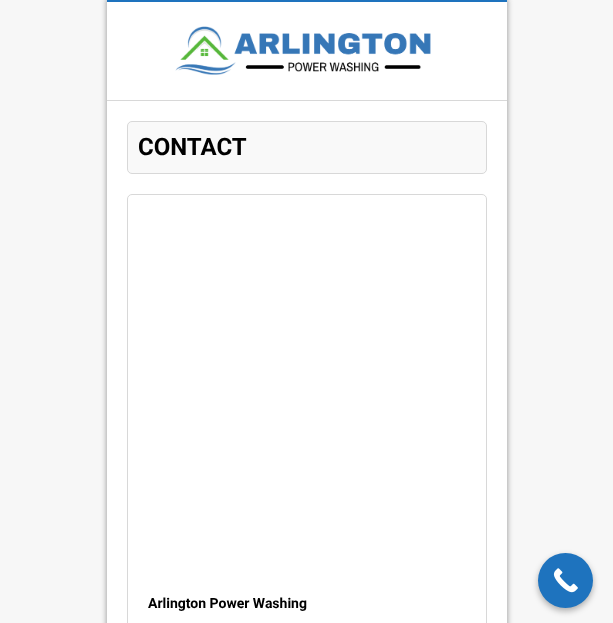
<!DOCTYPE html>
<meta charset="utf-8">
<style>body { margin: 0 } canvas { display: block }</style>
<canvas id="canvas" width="613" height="623"></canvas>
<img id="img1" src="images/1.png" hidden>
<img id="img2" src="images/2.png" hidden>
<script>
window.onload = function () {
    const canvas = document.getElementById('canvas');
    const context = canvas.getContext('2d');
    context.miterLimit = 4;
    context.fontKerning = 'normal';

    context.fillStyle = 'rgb(247, 247, 247)';
    context.fillRect(0, 0, 613, 623);
    context.fillStyle = 'rgb(168, 168, 168)';
    context.filter = 'blur(2.5px)';
    context.beginPath();
    context.rect(106, -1, 402, 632);
    context.fill();
    context.filter = 'none';
    context.fillStyle = 'rgb(255, 255, 255)';
    context.fillRect(107, 2, 400, 621);
    context.fillStyle = 'rgb(30, 115, 190)';
    context.fillRect(107, 0, 400, 2);
    context.fillStyle = 'rgb(216, 216, 216)';
    context.fillRect(107, 100, 400, 1);
    context.drawImage(document.getElementById('img1'), 175, 26, 256, 49);
    context.fillStyle = 'rgb(249, 249, 249)';
    context.beginPath();
    context.roundRect(127.5, 121.5, 359, 52, 4.5);
    context.fill();
    context.strokeStyle = 'rgb(216, 216, 216)';
    context.stroke();
    context.beginPath();
    context.roundRect(127.5, 194.5, 359, 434, 4.5);
    context.stroke();
    context.fillStyle = 'rgba(0, 0, 0, 0.3)';
    context.filter = 'blur(3px)';
    context.beginPath();
    context.roundRect(538, 556, 55, 55, 27.5);
    context.fill();
    context.filter = 'none';
    context.fillStyle = 'rgb(30, 115, 190)';
    context.beginPath();
    context.arc(565.5, 580.5, 27.5, 0, 2 * Math.PI);
    context.fill();
    context.drawImage(document.getElementById('img2'), 553, 568, 25, 25);
    context.font = 'bold 24px Roboto';
    context.fillStyle = 'rgb(0, 0, 0)';
    context.fillText('CONTACT', 138, 155);
    context.font = 'bold 14px Roboto';
    context.fillText('Arlington Power Washing', 148, 608);
};
</script>
